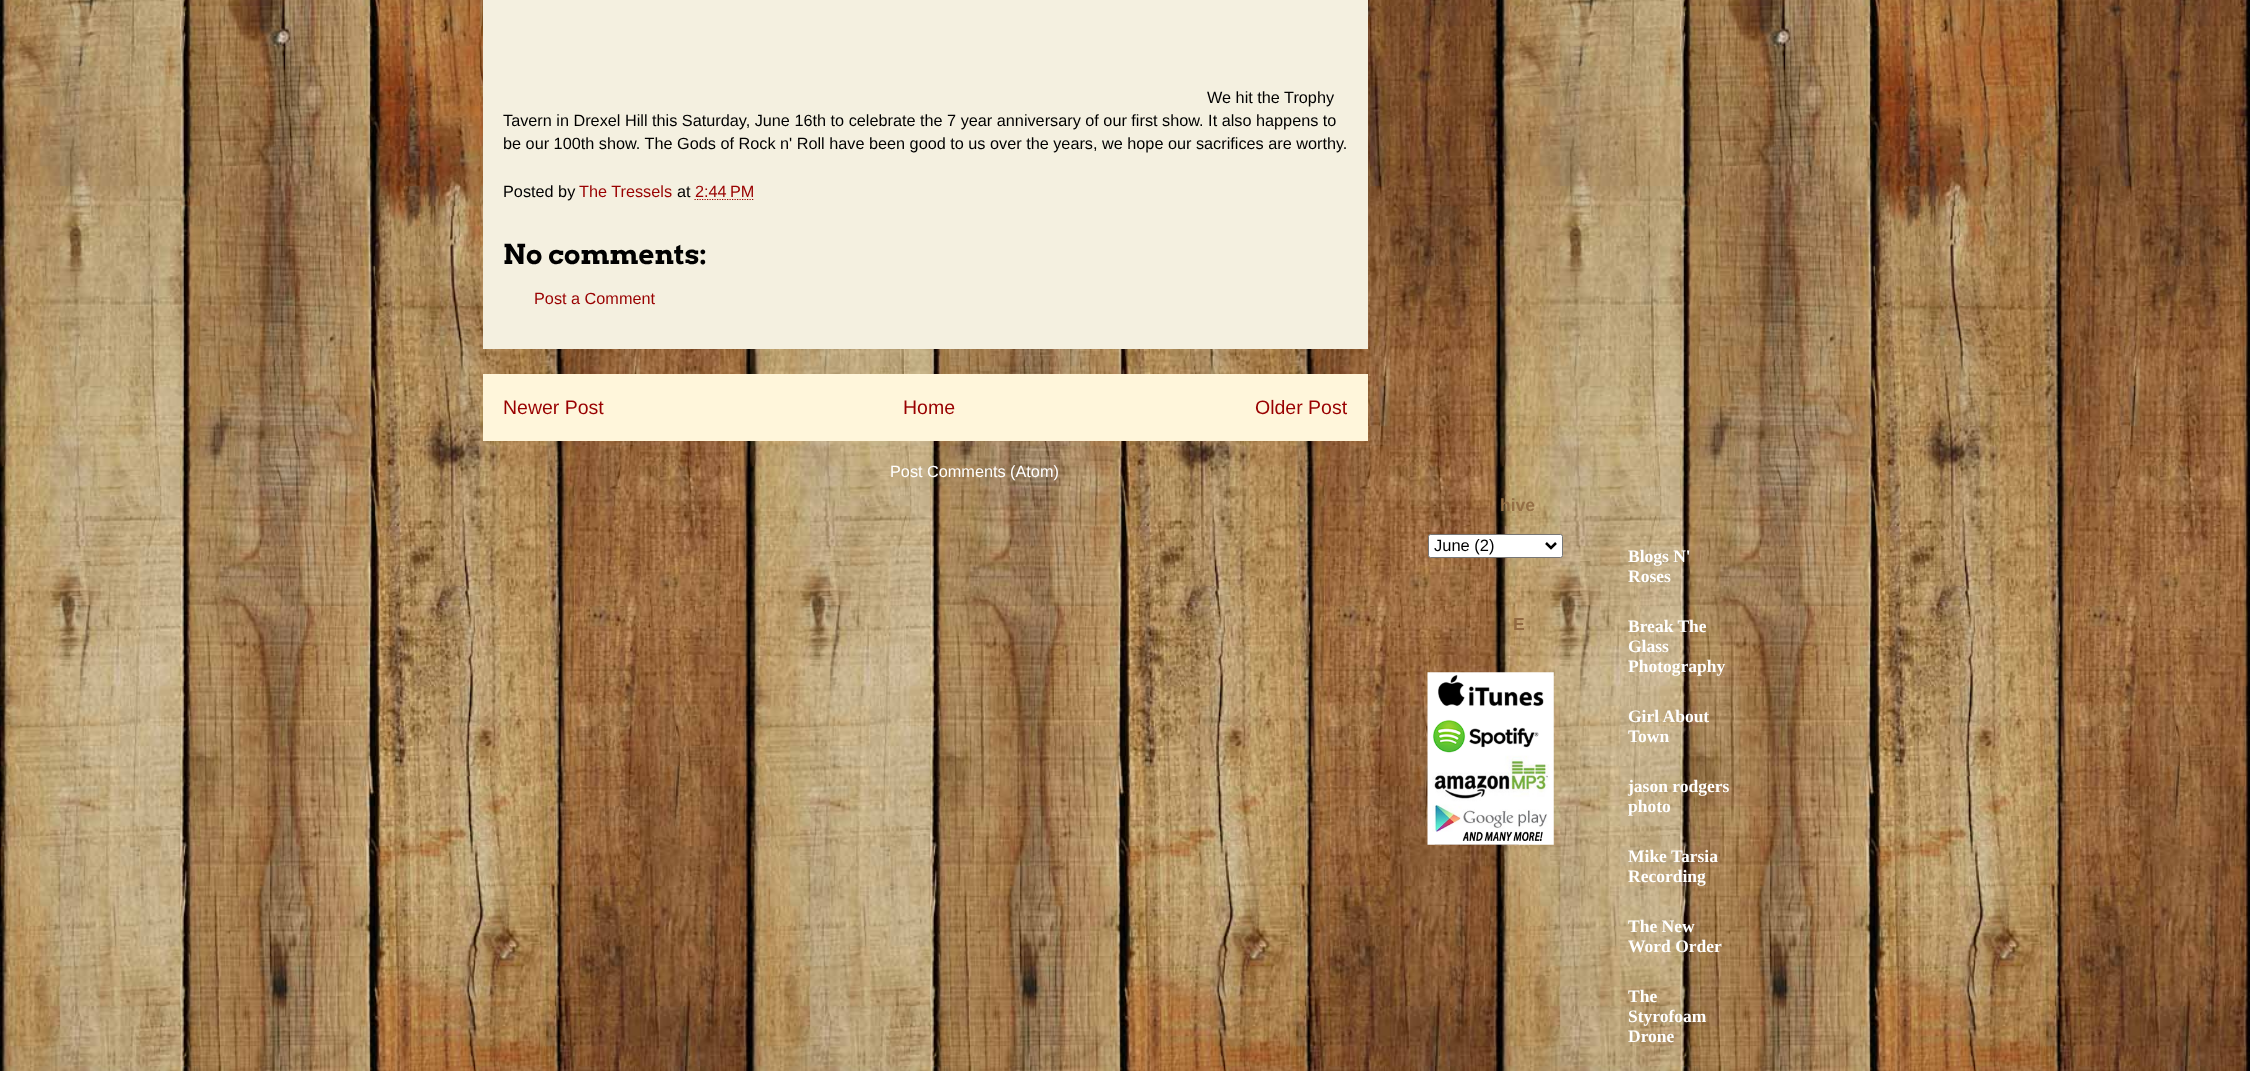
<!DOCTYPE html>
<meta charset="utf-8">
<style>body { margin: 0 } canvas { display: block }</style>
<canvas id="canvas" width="2250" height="1071"></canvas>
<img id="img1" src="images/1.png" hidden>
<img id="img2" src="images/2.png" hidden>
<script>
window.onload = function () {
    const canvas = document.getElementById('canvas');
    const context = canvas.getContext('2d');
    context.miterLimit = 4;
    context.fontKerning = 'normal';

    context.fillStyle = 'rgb(255, 255, 255)';
    context.fillRect(0, 0, 2250, 1071);
    context.drawImage(document.getElementById('img1'), 0, 0, 2250, 1071);
    context.fillStyle = 'rgb(244, 240, 224)';
    context.fillRect(483, 0, 885, 349);
    context.beginPath();
    context.moveTo(694.5, 199.5);
    context.lineTo(754, 199.5);
    context.strokeStyle = 'rgb(153, 0, 0)';
    context.lineWidth = 1.2;
    context.setLineDash([1.25, 1.25]);
    context.stroke();
    context.fillStyle = 'rgb(255, 246, 219)';
    context.fillRect(483, 374, 885, 67);
    context.fillStyle = 'rgb(255, 255, 255)';
    context.beginPath();
    context.roundRect(1428.5, 534.5, 134, 23, 2);
    context.fill();
    context.strokeStyle = 'rgb(118, 118, 118)';
    context.lineWidth = 1;
    context.setLineDash([]);
    context.stroke();
    context.beginPath();
    context.moveTo(1546, 543);
    context.lineTo(1551, 548);
    context.lineTo(1556, 543);
    context.strokeStyle = 'rgb(0, 0, 0)';
    context.lineWidth = 2.5;
    context.stroke();
    context.drawImage(document.getElementById('img2'), 1427, 672, 127, 173);
    context.font = '16.25px Liberation Sans';
    context.fillStyle = 'rgb(0, 0, 0)';
    context.fillText('We hit the Trophy', 1207, 103);
    context.fillText('Tavern in Drexel Hill this Saturday, June 16th to celebrate the 7 year anniversary of our first show. It also happens to', 503, 126);
    context.fillText('be our 100th show. The Gods of Rock n\' Roll have been good to us over the years, we hope our sacrifices are worthy.', 503, 149);
    context.fillText('Posted by', 503, 197);
    context.fillStyle = 'rgb(153, 0, 0)';
    context.fillText('The Tressels', 579, 197);
    context.fillStyle = 'rgb(0, 0, 0)';
    context.fillText('at', 677, 197);
    context.fillStyle = 'rgb(153, 0, 0)';
    context.fillText('2:44 PM', 695, 197);
    context.font = 'bold 27.5px Arvo';
    context.fillStyle = 'rgb(0, 0, 0)';
    context.fillText('No comments:', 503, 264);
    context.font = '16.25px Liberation Sans';
    context.fillStyle = 'rgb(153, 0, 0)';
    context.fillText('Post a Comment', 534, 304);
    context.font = '19.5px Liberation Sans';
    context.fillText('Newer Post', 503, 414);
    context.fillText('Home', 903, 414);
    context.fillText('Older Post', 1255, 414);
    context.font = '16.25px Liberation Sans';
    context.fillStyle = 'rgb(255, 255, 255)';
    context.fillText('Post Comments (Atom)', 890, 477);
    context.font = 'bold 17.5px Liberation Sans';
    context.fillStyle = 'rgb(149, 111, 69)';
    context.fillText('hive', 1500, 511);
    context.font = '16.5px Liberation Sans';
    context.fillStyle = 'rgb(0, 0, 0)';
    context.fillText('June (2)', 1434, 551);
    context.font = 'bold 17.5px Liberation Sans';
    context.fillStyle = 'rgb(146, 105, 65)';
    context.fillText('E', 1513, 630);
    context.font = 'bold 17.5px Liberation Serif';
    context.fillStyle = 'rgb(255, 255, 255)';
    context.fillText('Blogs N\'', 1628, 562);
    context.fillText('Roses', 1628, 582);
    context.fillText('Break The', 1628, 632);
    context.fillText('Glass', 1628, 652);
    context.fillText('Photography', 1628, 672);
    context.fillText('Girl About', 1628, 722);
    context.fillText('Town', 1628, 742);
    context.fillText('jason rodgers', 1628, 792);
    context.fillText('photo', 1628, 812);
    context.fillText('Mike Tarsia', 1628, 862);
    context.fillText('Recording', 1628, 882);
    context.fillText('The New', 1628, 932);
    context.fillText('Word Order', 1628, 952);
    context.fillText('The', 1628, 1002);
    context.fillText('Styrofoam', 1628, 1022);
    context.fillText('Drone', 1628, 1042);
};
</script>
